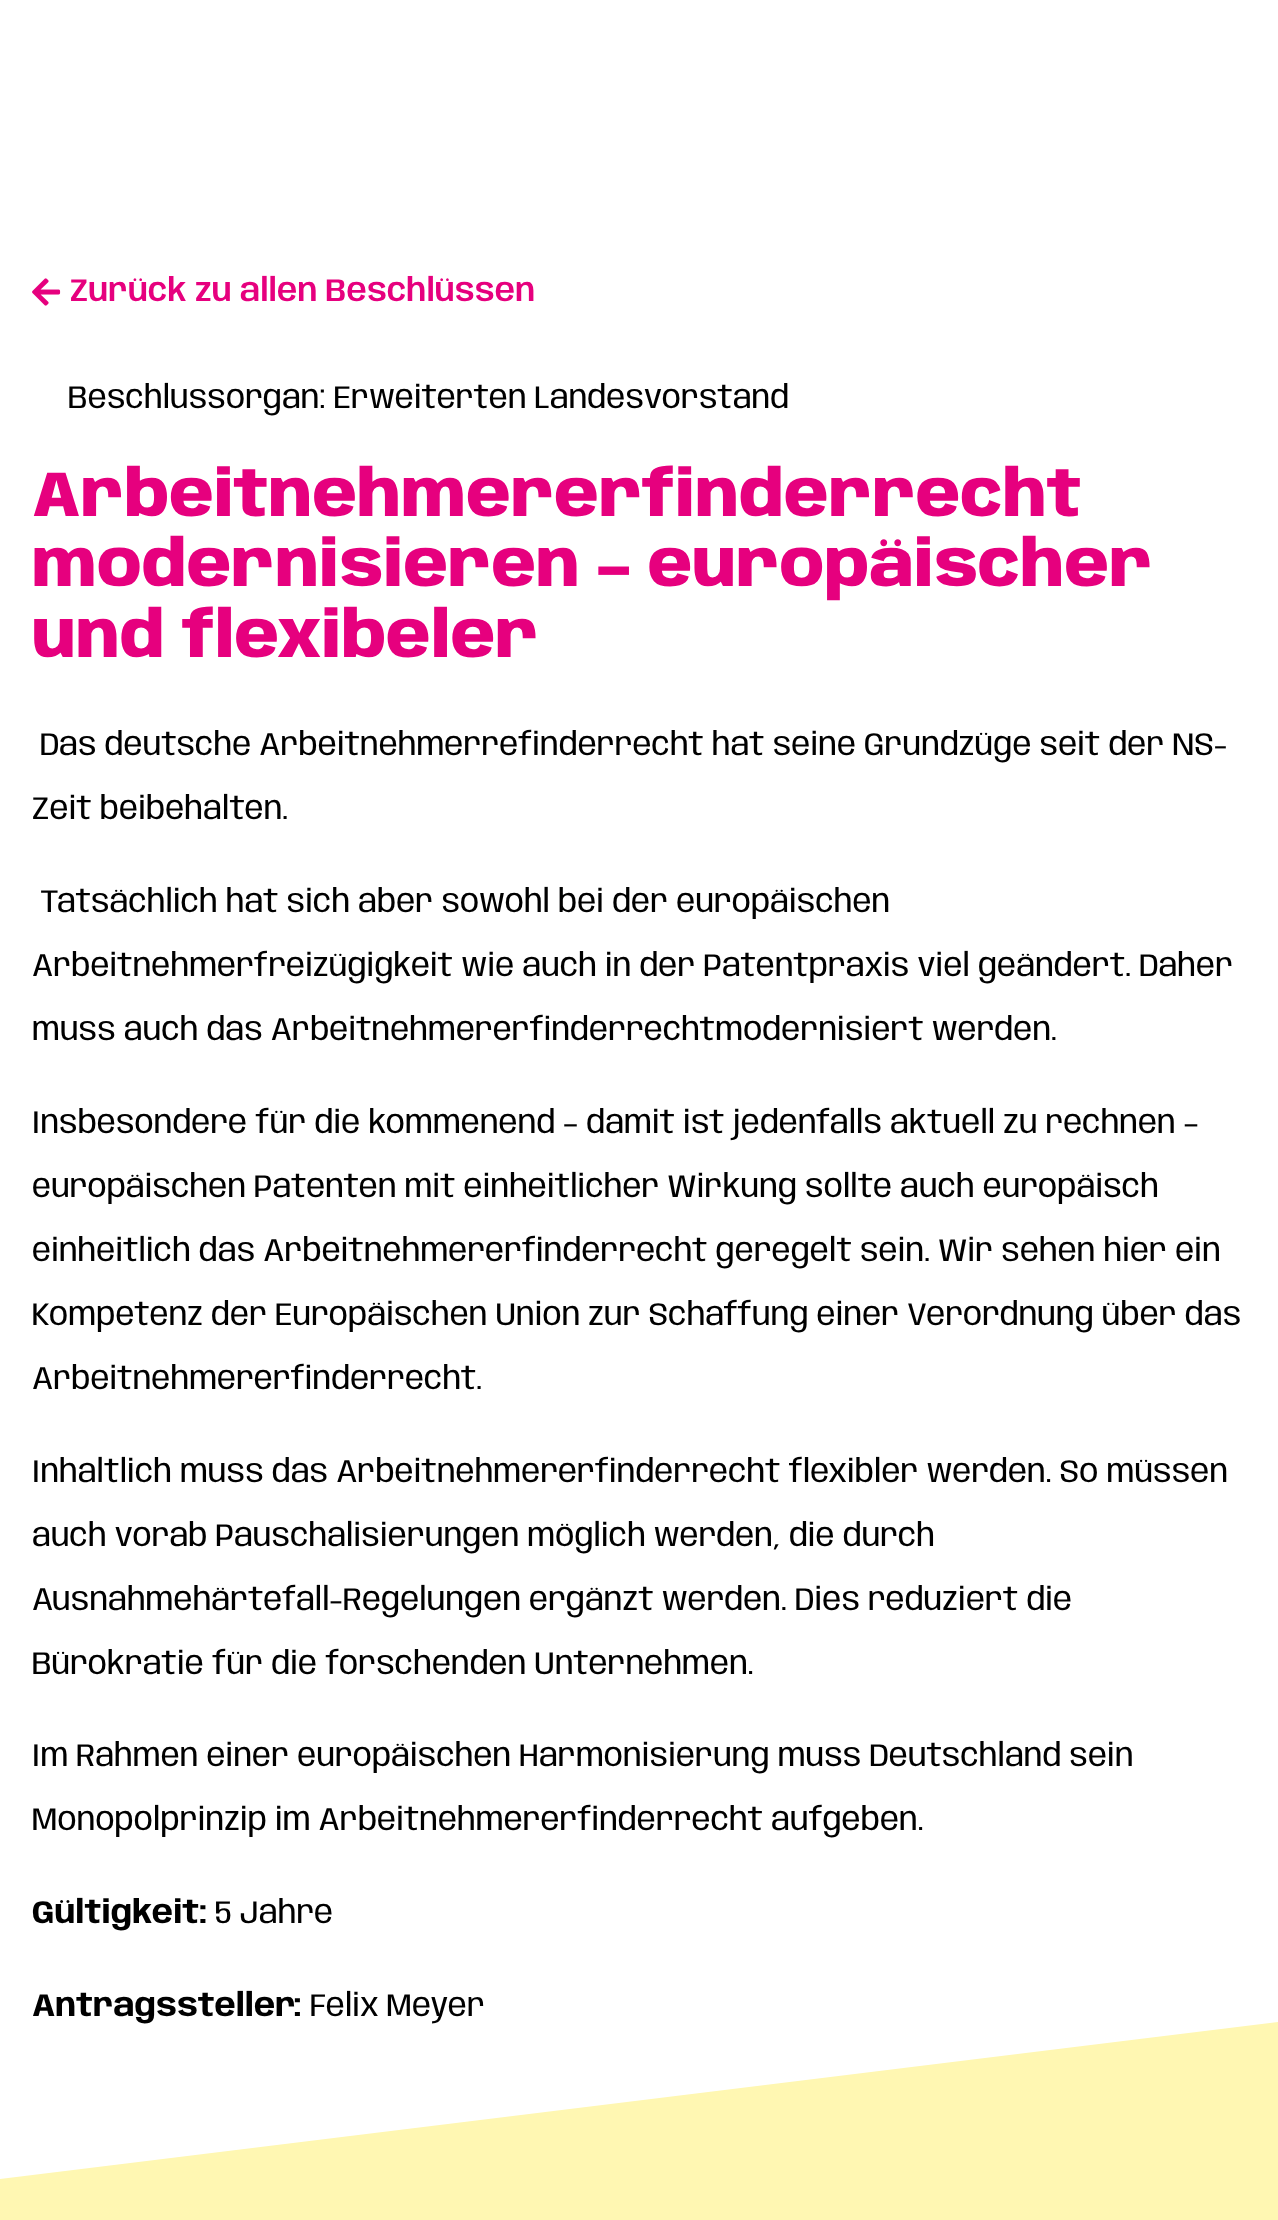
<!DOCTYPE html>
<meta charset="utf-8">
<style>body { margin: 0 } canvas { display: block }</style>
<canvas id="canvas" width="1278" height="2220"></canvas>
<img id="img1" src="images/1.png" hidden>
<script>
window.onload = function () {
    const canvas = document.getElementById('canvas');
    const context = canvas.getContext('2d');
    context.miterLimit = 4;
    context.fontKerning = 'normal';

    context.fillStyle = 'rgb(255, 255, 255)';
    context.fillRect(0, 0, 1278, 2220);
    context.drawImage(document.getElementById('img1'), 32, 278, 29, 28);
    context.font = '600 32px Anybody';
    context.fillStyle = 'rgb(230, 0, 126)';
    context.fillText('Zurück zu allen Beschlüssen', 70, 301);
    context.font = '32px Anybody';
    context.fillStyle = 'rgb(0, 0, 0)';
    context.fillText('Beschlussorgan: Erweiterten Landesvorstand', 68, 408);
    context.font = '800 64px Anybody';
    context.fillStyle = 'rgb(230, 0, 126)';
    context.fillText('Arbeitnehmererfinderrecht', 32, 516);
    context.fillText('modernisieren – europäischer', 32, 586);
    context.fillText('und flexibeler', 32, 657);
    context.font = '32px Anybody';
    context.fillStyle = 'rgb(0, 0, 0)';
    context.fillText('Das deutsche Arbeitnehmerrefinderrecht hat seine Grundzüge seit der NS-', 40, 755);
    context.fillText('Zeit beibehalten.', 32, 819);
    context.fillText('Tatsächlich hat sich aber sowohl bei der europäischen', 40, 912);
    context.fillText('Arbeitnehmerfreizügigkeit wie auch in der Patentpraxis viel geändert. Daher', 32, 976);
    context.fillText('muss auch das Arbeitnehmererfinderrechtmodernisiert werden.', 32, 1040);
    context.fillText('Insbesondere für die kommenend – damit ist jedenfalls aktuell zu rechnen –', 32, 1133);
    context.fillText('europäischen Patenten mit einheitlicher Wirkung sollte auch europäisch', 32, 1197);
    context.fillText('einheitlich das Arbeitnehmererfinderrecht geregelt sein. Wir sehen hier ein', 32, 1261);
    context.fillText('Kompetenz der Europäischen Union zur Schaffung einer Verordnung über das', 32, 1325);
    context.fillText('Arbeitnehmererfinderrecht.', 32, 1389);
    context.fillText('Inhaltlich muss das Arbeitnehmererfinderrecht flexibler werden. So müssen', 32, 1482);
    context.fillText('auch vorab Pauschalisierungen möglich werden, die durch', 32, 1546);
    context.fillText('Ausnahmehärtefall-Regelungen ergänzt werden. Dies reduziert die', 32, 1610);
    context.fillText('Bürokratie für die forschenden Unternehmen.', 32, 1674);
    context.fillText('Im Rahmen einer europäischen Harmonisierung muss Deutschland sein', 32, 1766);
    context.fillText('Monopolprinzip im Arbeitnehmererfinderrecht aufgeben.', 32, 1830);
    context.font = 'bold 32px Anybody';
    context.fillText('Gültigkeit:', 32, 1923);
    context.font = '32px Anybody';
    context.fillText('5 Jahre', 215, 1923);
    context.font = 'bold 32px Anybody';
    context.fillText('Antragssteller:', 32, 2016);
    context.font = '32px Anybody';
    context.fillText('Felix Meyer', 310, 2016);
    context.fillStyle = 'rgb(255, 247, 178)';
    context.beginPath();
    context.moveTo(0, 2179);
    context.lineTo(1278, 2022);
    context.lineTo(1278, 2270);
    context.lineTo(0, 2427);
    context.closePath();
    context.fill();
};
</script>
